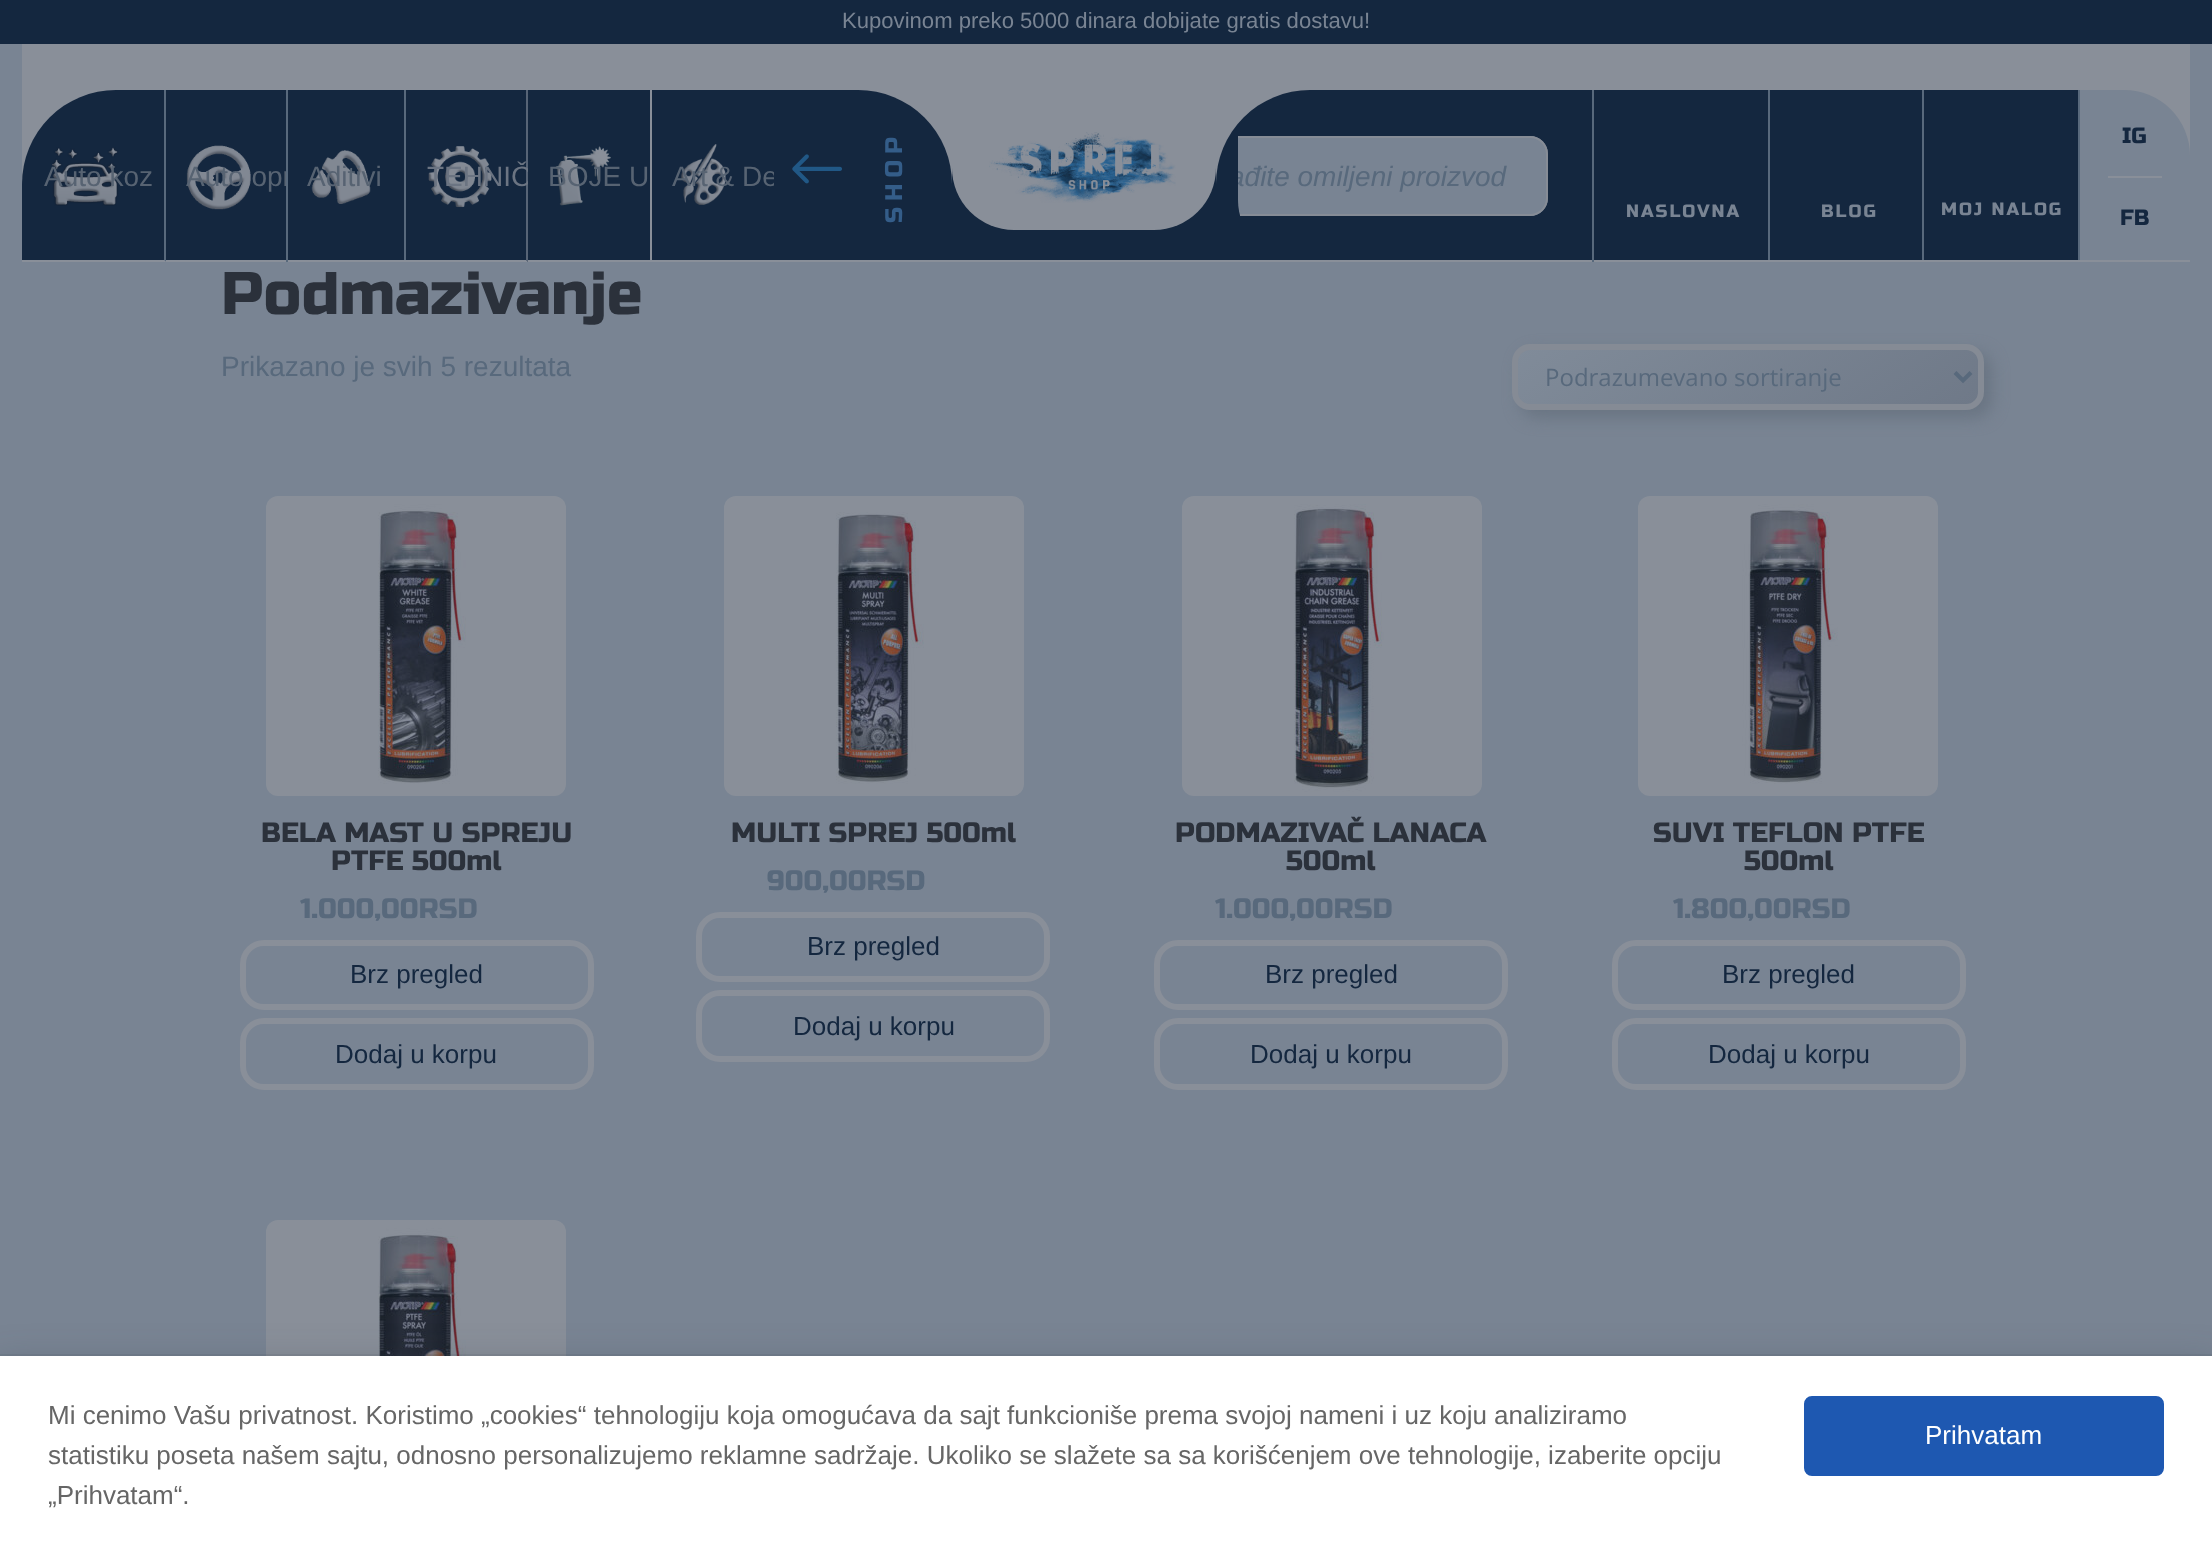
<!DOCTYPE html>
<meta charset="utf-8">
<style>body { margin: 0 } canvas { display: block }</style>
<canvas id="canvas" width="2212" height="1555"></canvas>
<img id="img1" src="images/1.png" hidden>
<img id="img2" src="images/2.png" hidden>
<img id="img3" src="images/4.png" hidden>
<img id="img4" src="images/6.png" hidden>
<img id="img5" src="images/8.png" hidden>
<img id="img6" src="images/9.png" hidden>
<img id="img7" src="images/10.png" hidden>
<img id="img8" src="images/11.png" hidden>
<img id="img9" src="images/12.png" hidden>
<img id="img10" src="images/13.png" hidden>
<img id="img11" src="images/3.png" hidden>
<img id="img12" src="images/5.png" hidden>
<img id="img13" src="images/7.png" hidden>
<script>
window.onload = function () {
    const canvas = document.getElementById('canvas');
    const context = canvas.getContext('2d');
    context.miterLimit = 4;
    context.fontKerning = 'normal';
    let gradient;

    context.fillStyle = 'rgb(121, 132, 147)';
    context.fillRect(0, 0, 2212, 1555);
    context.fillStyle = 'rgb(20, 39, 63)';
    context.fillRect(0, 0, 2212, 44);
    context.fillStyle = 'rgb(137, 143, 153)';
    context.fillRect(22, 44, 2168, 216);
    context.fillRect(164, 260, 2026, 2);
    context.fillStyle = 'rgb(20, 39, 63)';
    context.beginPath();
    context.roundRect(22, 90, 142, 170, [94, 0, 0, 0]);
    context.fill();
    context.fillStyle = 'rgb(88, 105, 124)';
    context.beginPath();
    context.moveTo(166, 90);
    context.lineTo(164, 90);
    context.lineTo(164, 260);
    context.lineTo(166, 262);
    context.closePath();
    context.fill();
    context.fillStyle = 'rgb(137, 143, 153)';
    context.beginPath();
    context.moveTo(166, 262);
    context.lineTo(164, 260);
    context.lineTo(22, 260);
    context.lineTo(22, 262);
    context.closePath();
    context.fill();
    context.drawImage(document.getElementById('img1'), 52, 147, 67, 59);
    context.fillStyle = 'rgb(20, 39, 63)';
    context.fillRect(166, 90, 120, 170);
    context.drawImage(document.getElementById('img2'), 186, 145, 65, 65);
    context.fillStyle = 'rgb(88, 105, 124)';
    context.fillRect(404, 90, 2, 172);
    context.fillStyle = 'rgb(137, 143, 153)';
    context.fillRect(404, 260, 2, 2);
    context.fillStyle = 'rgb(20, 39, 63)';
    context.fillRect(406, 90, 122, 172);
    context.fillStyle = 'rgb(87, 100, 118)';
    context.beginPath();
    context.moveTo(528, 90);
    context.lineTo(528, 262);
    context.lineTo(526, 260);
    context.lineTo(526, 90);
    context.closePath();
    context.fill();
    context.fillStyle = 'rgb(137, 143, 153)';
    context.beginPath();
    context.moveTo(528, 262);
    context.lineTo(406, 262);
    context.lineTo(406, 260);
    context.lineTo(526, 260);
    context.closePath();
    context.fill();
    context.drawImage(document.getElementById('img3'), 428, 146, 64, 62);
    context.fillStyle = 'rgb(20, 39, 63)';
    context.fillRect(652, 90, 122, 170);
    context.drawImage(document.getElementById('img4'), 681, 144, 45, 61);
    context.fillRect(952, 168, 264, 92);
    context.fillStyle = 'rgb(137, 143, 153)';
    context.beginPath();
    context.roundRect(952, 44, 264, 186, [0, 0, 62, 62]);
    context.fill();
    context.drawImage(document.getElementById('img5'), 989, 132, 187, 71);
    context.fillStyle = 'rgb(20, 39, 63)';
    context.beginPath();
    context.roundRect(1216, 90, 442, 170, [94, 0, 0, 0]);
    context.fill();
    context.save();
    context.beginPath();
    context.roundRect(1238, 90, 310, 172, [0, 0, 62, 62]);
    context.clip();
    context.fillStyle = 'rgb(121, 132, 147)';
    context.beginPath();
    context.roundRect(1238, 136, 310, 80, [0, 18, 18, 0]);
    context.fill();
    context.restore();
    context.fillStyle = 'rgb(134, 140, 150)';
    context.beginPath();
    context.moveTo(1238, 138);
    context.lineTo(1238, 136);
    context.lineTo(1530, 136);
    context.bezierCurveTo(1540, 136, 1548, 144, 1548, 154);
    context.lineTo(1548, 198);
    context.bezierCurveTo(1548, 208, 1540, 216, 1530, 216);
    context.lineTo(1240, 216);
    context.lineTo(1240, 214);
    context.lineTo(1530, 214);
    context.bezierCurveTo(1539, 214, 1546, 207, 1546, 198);
    context.lineTo(1546, 154);
    context.bezierCurveTo(1546, 145, 1539, 138, 1530, 138);
    context.closePath();
    context.fill();
    context.fillStyle = 'rgb(121, 132, 147)';
    context.beginPath();
    context.roundRect(2080, 90, 110, 170, [0, 66, 0, 0]);
    context.fill();
    context.fillStyle = 'rgb(137, 143, 153)';
    context.fillRect(2108, 176, 54, 2);
    context.fillStyle = 'rgb(20, 39, 63)';
    context.fillRect(1658, 90, 110, 170);
    context.fillStyle = 'rgb(88, 105, 124)';
    context.fillRect(1768, 90, 2, 172);
    context.fillStyle = 'rgb(137, 143, 153)';
    context.fillRect(1768, 260, 2, 2);
    context.fillStyle = 'rgb(88, 105, 124)';
    context.fillRect(1592, 90, 2, 172);
    context.fillStyle = 'rgb(20, 39, 63)';
    context.fillRect(1770, 90, 152, 170);
    context.fillStyle = 'rgb(88, 105, 124)';
    context.fillRect(1922, 90, 2, 172);
    context.fillStyle = 'rgb(137, 143, 153)';
    context.fillRect(1922, 260, 2, 2);
    context.fillStyle = 'rgb(20, 39, 63)';
    context.fillRect(1924, 90, 154, 170);
    context.fillStyle = 'rgb(88, 105, 124)';
    context.fillRect(2078, 90, 2, 172);
    context.fillStyle = 'rgb(137, 143, 153)';
    context.fillRect(2078, 260, 2, 2);
    context.fillStyle = 'rgb(105, 116, 130)';
    context.filter = 'blur(8px)';
    context.beginPath();
    context.roundRect(1520, 352, 472, 66, 18);
    context.fill();
    context.filter = 'none';
    gradient = context.createLinearGradient(1660, 251, 1836, 503);
    gradient.addColorStop(0, 'rgb(128, 139, 153)');
    gradient.addColorStop(1, 'rgb(111, 121, 136)');
    context.fillStyle = gradient;
    context.fillRect(1518, 350, 460, 54);
    context.beginPath();
    context.roundRect(1515, 347, 466, 60, 15);
    context.strokeStyle = 'rgb(133, 139, 149)';
    context.lineWidth = 6;
    context.stroke();
    context.beginPath();
    context.moveTo(1955, 372.5);
    context.lineTo(1963, 380.5);
    context.lineTo(1971, 372.5);
    context.strokeStyle = 'rgb(88, 105, 124)';
    context.lineWidth = 4;
    context.stroke();
    context.drawImage(document.getElementById('img6'), 266, 496, 300, 300);
    context.beginPath();
    context.roundRect(243, 943, 348, 64, 21);
    context.strokeStyle = 'rgb(137, 143, 153)';
    context.lineWidth = 6;
    context.stroke();
    context.beginPath();
    context.roundRect(243, 1021, 348, 66, 21);
    context.stroke();
    context.drawImage(document.getElementById('img7'), 724, 496, 300, 300);
    context.beginPath();
    context.roundRect(699, 915, 348, 64, 21);
    context.stroke();
    context.beginPath();
    context.roundRect(699, 993, 348, 66, 21);
    context.stroke();
    context.drawImage(document.getElementById('img8'), 1182, 496, 300, 300);
    context.beginPath();
    context.roundRect(1157, 943, 348, 64, 21);
    context.stroke();
    context.beginPath();
    context.roundRect(1157, 1021, 348, 66, 21);
    context.stroke();
    context.drawImage(document.getElementById('img9'), 1638, 496, 300, 300);
    context.beginPath();
    context.roundRect(1615, 943, 348, 64, 21);
    context.stroke();
    context.beginPath();
    context.roundRect(1615, 1021, 348, 66, 21);
    context.stroke();
    context.drawImage(document.getElementById('img10'), 266, 1220, 300, 136);
    context.fillStyle = 'rgba(36, 47, 66, 0.31)';
    context.filter = 'blur(20px)';
    context.beginPath();
    context.rect(-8, 1368, 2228, 176);
    context.fill();
    context.filter = 'none';
    context.strokeStyle = 'rgba(36, 47, 66, 0.08)';
    context.lineWidth = 2;
    context.strokeRect(-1, 1355, 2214, 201);
    context.fillStyle = 'rgb(255, 255, 255)';
    context.fillRect(0, 1356, 2212, 199);
    context.fillStyle = 'rgb(30, 88, 177)';
    context.beginPath();
    context.roundRect(1805, 1397, 358, 78, 7);
    context.fill();
    context.strokeStyle = 'rgb(30, 88, 177)';
    context.stroke();
    context.font = '22.1px Liberation Sans';
    context.fillStyle = 'rgb(121, 132, 147)';
    context.fillText('Kupovinom preko 5000 dinara dobijate gratis dostavu!', 842, 28);
    context.font = '28px Liberation Sans';
    context.fillStyle = 'rgb(87, 99, 114)';
    context.fillText('Auto koz', 44, 186);
    context.fillText('Auto opr', 186, 186);
    context.fillStyle = 'rgb(20, 39, 63)';
    context.fillRect(288, 90, 116, 170);
    context.fillStyle = 'rgb(88, 105, 124)';
    context.fillRect(286, 90, 2, 172);
    context.drawImage(document.getElementById('img11'), 311, 150, 60, 54);
    context.fillStyle = 'rgb(87, 99, 114)';
    context.fillText('Aditivi', 307, 186);
    context.fillStyle = 'rgb(107, 116, 130)';
    context.fillText('TEHNIČ', 427, 186);
    context.fillStyle = 'rgb(20, 39, 63)';
    context.fillRect(528, 90, 122, 170);
    context.drawImage(document.getElementById('img12'), 555, 146, 56, 60);
    context.fillStyle = 'rgb(87, 99, 114)';
    context.fillText('BOJE U', 548, 186);
    context.fillText('Art & De', 672, 186);
    context.fillStyle = 'rgb(20, 39, 63)';
    context.beginPath();
    context.roundRect(774, 90, 178, 170, [0, 94, 0, 0]);
    context.fill();
    context.drawImage(document.getElementById('img13'), 792, 154, 50, 30);
    context.letterSpacing = '6px';
    context.font = '24px Russo One';
    context.fillStyle = 'rgb(52, 93, 137)';
    context.save();
    context.translate(902, 223);
    context.rotate(-90 * Math.PI / 180);
    context.fillText('SHOP', 0, 0);
    context.restore();
    context.save();
    context.beginPath();
    context.roundRect(1238, 90, 310, 172, [0, 0, 62, 62]);
    context.clip();
    context.letterSpacing = '0px';
    context.font = 'italic 28px Liberation Sans';
    context.fillStyle = 'rgb(88, 105, 124)';
    context.fillText('ađite omiljeni proizvod', 1229, 186);
    context.restore();
    context.letterSpacing = '0px';
    context.font = '22.1px Russo One';
    context.fillStyle = 'rgb(20, 39, 63)';
    context.fillText('IG', 2122, 143);
    context.fillText('FB', 2120, 225);
    context.letterSpacing = '2px';
    context.font = '17.75px Russo One';
    context.fillStyle = 'rgb(121, 132, 147)';
    context.fillText('NASLOVNA', 1626, 217);
    context.fillText('BLOG', 1821, 217);
    context.fillText('MOJ NALOG', 1941, 215);
    context.letterSpacing = '0px';
    context.font = '60px Russo One';
    context.fillStyle = 'rgb(43, 49, 59)';
    context.fillText('Podmazivanje', 221, 314);
    context.font = '28px Liberation Sans';
    context.fillStyle = 'rgb(88, 105, 124)';
    context.fillText('Prikazano je svih 5 rezultata', 221, 376);
    context.font = '24px Open Sans';
    context.fillText('Podrazumevano sortiranje', 1545, 386);
    context.font = '28px Russo One';
    context.fillStyle = 'rgb(43, 49, 59)';
    context.fillText('BELA MAST U SPREJU', 261, 842);
    context.fillText('PTFE 500ml', 331, 870);
    context.fillStyle = 'rgb(88, 105, 124)';
    context.fillText('1.000,00RSD', 300, 918);
    context.font = '26px Liberation Sans';
    context.fillStyle = 'rgb(20, 39, 63)';
    context.fillText('Brz pregled', 350, 983);
    context.fillText('Dodaj u korpu', 335, 1063);
    context.font = '28px Russo One';
    context.fillStyle = 'rgb(43, 49, 59)';
    context.fillText('MULTI SPREJ 500ml', 731, 842);
    context.fillStyle = 'rgb(88, 105, 124)';
    context.fillText('900,00RSD', 767, 890);
    context.font = '26px Liberation Sans';
    context.fillStyle = 'rgb(20, 39, 63)';
    context.fillText('Brz pregled', 807, 955);
    context.fillText('Dodaj u korpu', 793, 1035);
    context.font = '28px Russo One';
    context.fillStyle = 'rgb(43, 49, 59)';
    context.fillText('PODMAZIVAČ LANACA', 1175, 842);
    context.fillText('500ml', 1286, 870);
    context.fillStyle = 'rgb(88, 105, 124)';
    context.fillText('1.000,00RSD', 1215, 918);
    context.font = '26px Liberation Sans';
    context.fillStyle = 'rgb(20, 39, 63)';
    context.fillText('Brz pregled', 1265, 983);
    context.fillText('Dodaj u korpu', 1250, 1063);
    context.font = '28px Russo One';
    context.fillStyle = 'rgb(43, 49, 59)';
    context.fillText('SUVI TEFLON PTFE', 1653, 842);
    context.fillText('500ml', 1744, 870);
    context.fillStyle = 'rgb(88, 105, 124)';
    context.fillText('1.800,00RSD', 1673, 918);
    context.font = '26px Liberation Sans';
    context.fillStyle = 'rgb(20, 39, 63)';
    context.fillText('Brz pregled', 1722, 983);
    context.fillText('Dodaj u korpu', 1708, 1063);
    context.fillStyle = 'rgb(102, 102, 102)';
    context.fillText('Mi cenimo Vašu privatnost. Koristimo „cookies“ tehnologiju koja omogućava da sajt funkcioniše prema svojoj nameni i uz koju analiziramo', 48, 1424);
    context.fillText('statistiku poseta našem sajtu, odnosno personalizujemo reklamne sadržaje. Ukoliko se slažete sa sa korišćenjem ove tehnologije, izaberite opciju', 48, 1464);
    context.fillText('„Prihvatam“.', 48, 1504);
    context.fillStyle = 'rgb(255, 255, 255)';
    context.fillText('Prihvatam', 1925, 1444);
};
</script>
